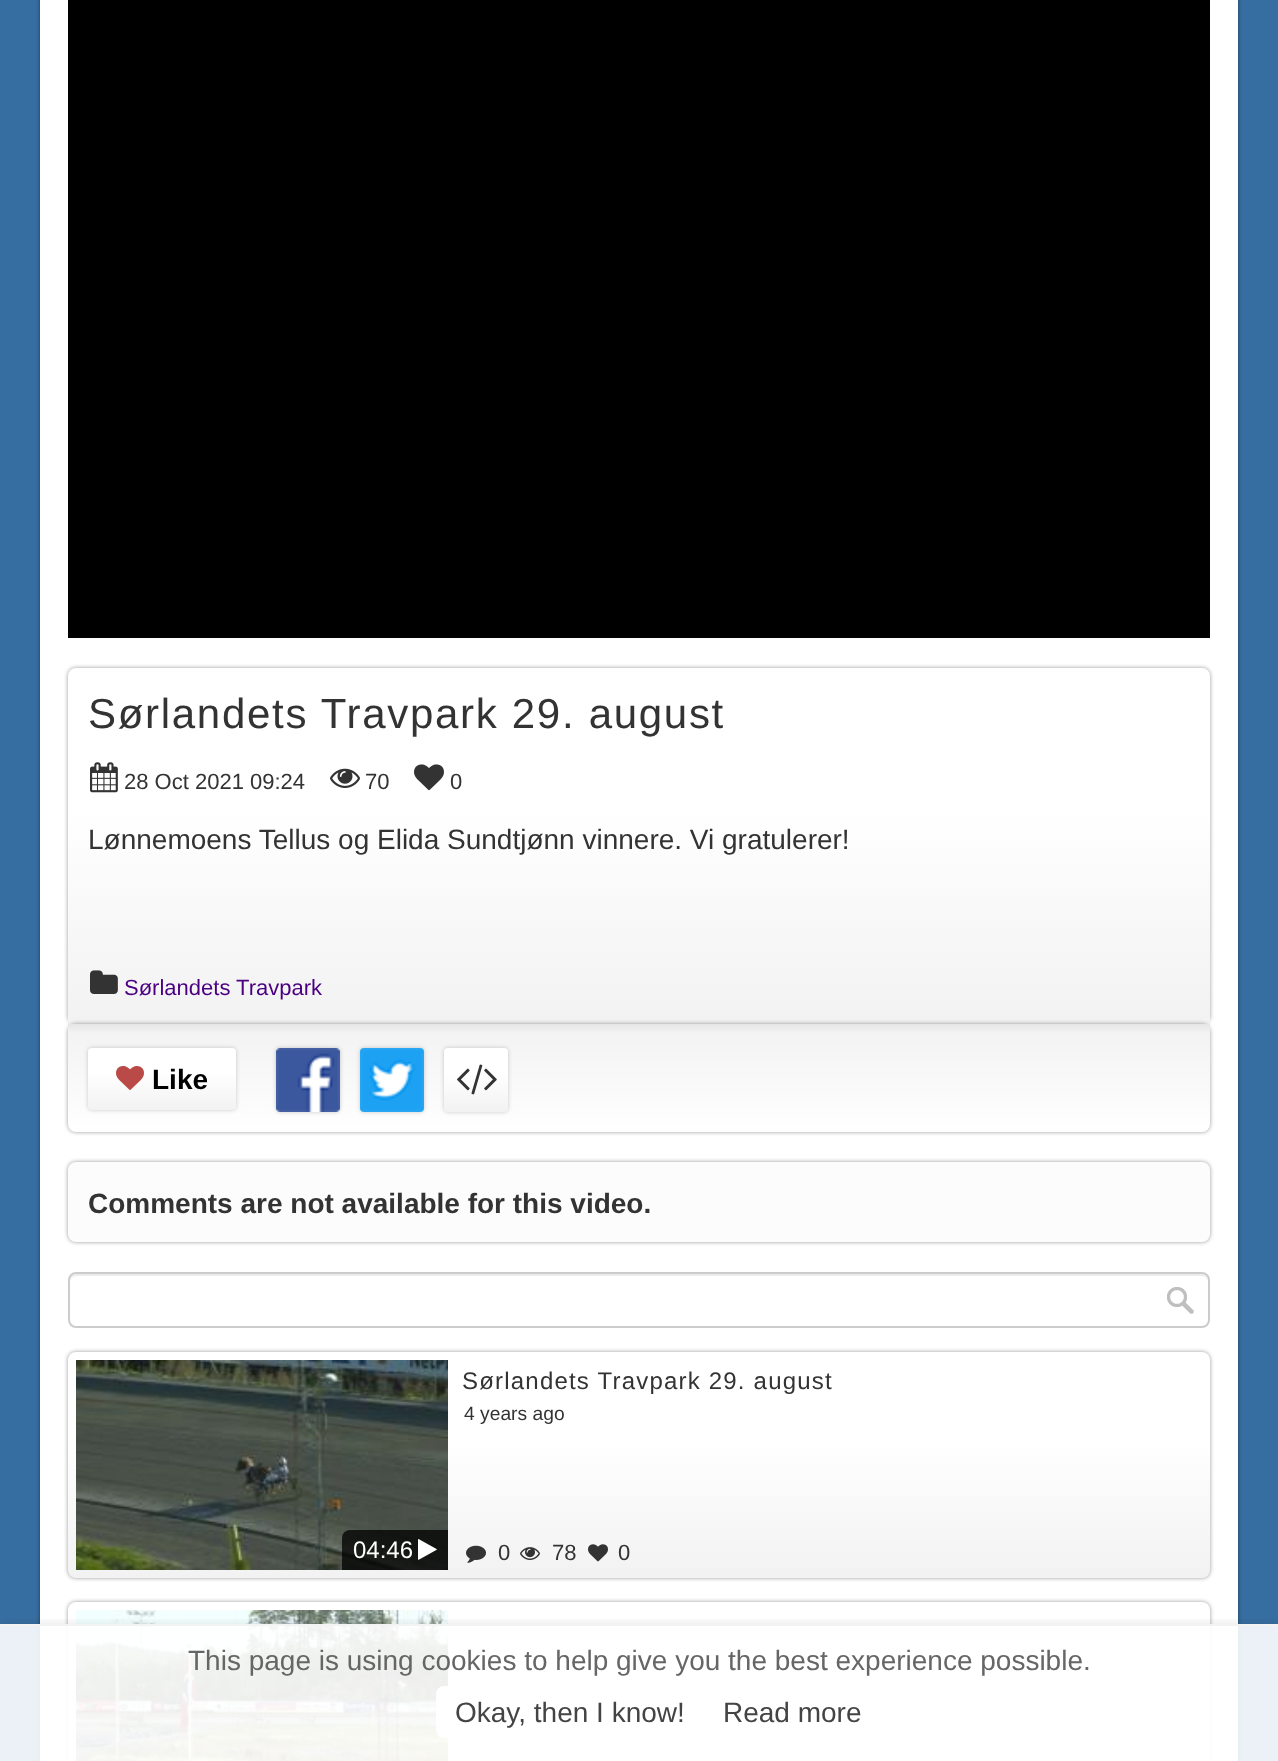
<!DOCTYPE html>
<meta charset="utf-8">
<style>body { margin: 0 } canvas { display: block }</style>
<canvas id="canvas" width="1278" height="1761"></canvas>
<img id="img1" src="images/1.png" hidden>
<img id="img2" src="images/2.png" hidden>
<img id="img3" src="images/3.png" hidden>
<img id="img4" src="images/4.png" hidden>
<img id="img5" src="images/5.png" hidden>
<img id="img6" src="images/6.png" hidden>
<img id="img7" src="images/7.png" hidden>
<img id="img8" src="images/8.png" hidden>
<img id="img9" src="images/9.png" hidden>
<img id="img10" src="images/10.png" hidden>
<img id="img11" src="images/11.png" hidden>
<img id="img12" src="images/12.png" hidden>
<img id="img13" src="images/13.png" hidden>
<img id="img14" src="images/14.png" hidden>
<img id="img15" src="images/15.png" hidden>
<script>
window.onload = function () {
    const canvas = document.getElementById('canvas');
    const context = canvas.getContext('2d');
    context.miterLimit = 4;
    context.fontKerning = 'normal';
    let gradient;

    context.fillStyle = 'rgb(55, 110, 161)';
    context.fillRect(0, 0, 1278, 1761);
    context.fillStyle = 'rgba(0, 0, 0, 0.45)';
    context.filter = 'blur(2px)';
    context.beginPath();
    context.roundRect(40, -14, 1198, 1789, 8);
    context.fill();
    context.filter = 'none';
    context.fillStyle = 'rgb(255, 255, 255)';
    context.fillRect(40, 0, 1198, 1761);
    context.fillStyle = 'rgb(0, 0, 0)';
    context.fillRect(68, 0, 1142, 638);
    context.fillStyle = 'rgba(0, 0, 0, 0.4)';
    context.filter = 'blur(2px)';
    context.beginPath();
    context.roundRect(68, 668, 1142, 356, 8);
    context.fill();
    context.filter = 'none';
    gradient = context.createLinearGradient(639, 668, 639, 1024);
    gradient.addColorStop(0, 'rgb(255, 255, 255)');
    gradient.addColorStop(0.4, 'rgb(255, 255, 255)');
    gradient.addColorStop(1, 'rgb(242, 242, 242)');
    context.fillStyle = gradient;
    context.beginPath();
    context.roundRect(68, 668, 1142, 356, [8, 8, 0, 0]);
    context.fill();
    context.drawImage(document.getElementById('img1'), 90, 762, 28, 31);
    context.drawImage(document.getElementById('img2'), 330, 768, 30, 20);
    context.drawImage(document.getElementById('img3'), 414, 764, 30, 27);
    context.drawImage(document.getElementById('img4'), 90, 970, 28, 24);
    context.fillStyle = 'rgba(0, 0, 0, 0.4)';
    context.filter = 'blur(2px)';
    context.beginPath();
    context.roundRect(68, 1024, 1142, 108, 8);
    context.fill();
    context.filter = 'none';
    gradient = context.createLinearGradient(639, 1024, 639, 1132);
    gradient.addColorStop(0, 'rgb(230, 230, 230)');
    gradient.addColorStop(0.08, 'rgb(243, 243, 243)');
    gradient.addColorStop(1, 'rgb(255, 255, 255)');
    context.fillStyle = gradient;
    context.beginPath();
    context.roundRect(68, 1024, 1142, 108, [0, 0, 8, 8]);
    context.fill();
    context.fillStyle = 'rgba(0, 0, 0, 0.2)';
    context.filter = 'blur(2px)';
    context.beginPath();
    context.roundRect(88, 1048, 148, 62, 4);
    context.fill();
    context.filter = 'none';
    gradient = context.createLinearGradient(162, 1048, 162, 1110);
    gradient.addColorStop(0, 'rgb(255, 255, 255)');
    gradient.addColorStop(0.4, 'rgb(255, 255, 255)');
    gradient.addColorStop(1, 'rgb(242, 242, 242)');
    context.fillStyle = gradient;
    context.beginPath();
    context.roundRect(88, 1048, 148, 62, 4);
    context.fill();
    context.drawImage(document.getElementById('img5'), 116, 1066, 28, 24);
    context.save();
    context.beginPath();
    context.moveTo(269, 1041);
    context.lineTo(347, 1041);
    context.lineTo(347, 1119);
    context.lineTo(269, 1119);
    context.closePath();
    context.moveTo(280, 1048);
    context.lineTo(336, 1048);
    context.bezierCurveTo(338, 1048, 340, 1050, 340, 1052);
    context.lineTo(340, 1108);
    context.bezierCurveTo(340, 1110, 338, 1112, 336, 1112);
    context.lineTo(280, 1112);
    context.bezierCurveTo(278, 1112, 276, 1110, 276, 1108);
    context.lineTo(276, 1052);
    context.bezierCurveTo(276, 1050, 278, 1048, 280, 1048);
    context.closePath();
    context.clip('evenodd');
    context.fillStyle = 'rgba(0, 0, 0, 0.2)';
    context.filter = 'blur(2px)';
    context.beginPath();
    context.roundRect(276, 1048, 64, 64, 4);
    context.fill();
    context.filter = 'none';
    context.restore();
    context.drawImage(document.getElementById('img6'), 276, 1048, 64, 64);
    context.save();
    context.beginPath();
    context.moveTo(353, 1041);
    context.lineTo(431, 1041);
    context.lineTo(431, 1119);
    context.lineTo(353, 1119);
    context.closePath();
    context.moveTo(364, 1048);
    context.lineTo(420, 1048);
    context.bezierCurveTo(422, 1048, 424, 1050, 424, 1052);
    context.lineTo(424, 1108);
    context.bezierCurveTo(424, 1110, 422, 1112, 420, 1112);
    context.lineTo(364, 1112);
    context.bezierCurveTo(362, 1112, 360, 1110, 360, 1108);
    context.lineTo(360, 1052);
    context.bezierCurveTo(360, 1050, 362, 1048, 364, 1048);
    context.closePath();
    context.clip('evenodd');
    context.fillStyle = 'rgba(0, 0, 0, 0.2)';
    context.filter = 'blur(2px)';
    context.beginPath();
    context.roundRect(360, 1048, 64, 64, 4);
    context.fill();
    context.filter = 'none';
    context.restore();
    context.drawImage(document.getElementById('img7'), 360, 1048, 64, 64);
    context.fillStyle = 'rgba(0, 0, 0, 0.2)';
    context.filter = 'blur(2px)';
    context.beginPath();
    context.roundRect(444, 1048, 64, 64, 4);
    context.fill();
    context.filter = 'none';
    gradient = context.createLinearGradient(476, 1048, 476, 1112);
    gradient.addColorStop(0, 'rgb(255, 255, 255)');
    gradient.addColorStop(0.4, 'rgb(255, 255, 255)');
    gradient.addColorStop(1, 'rgb(242, 242, 242)');
    context.fillStyle = gradient;
    context.beginPath();
    context.roundRect(444, 1048, 64, 64, 4);
    context.fill();
    context.drawImage(document.getElementById('img8'), 457, 1064, 40, 31);
    context.fillStyle = 'rgba(0, 0, 0, 0.4)';
    context.filter = 'blur(2px)';
    context.beginPath();
    context.roundRect(68, 1162, 1142, 80, 8);
    context.fill();
    context.filter = 'none';
    context.fillStyle = 'rgb(252, 252, 252)';
    context.beginPath();
    context.roundRect(68, 1162, 1142, 80, 8);
    context.fill();
    context.drawImage(document.getElementById('img9'), 1167, 1287, 27, 27);
    context.fillStyle = 'rgb(236, 236, 236)';
    context.beginPath();
    context.moveTo(76, 1276);
    context.lineTo(1202, 1276);
    context.bezierCurveTo(1205, 1276, 1208, 1279, 1208, 1282);
    context.lineTo(1208, 1280);
    context.bezierCurveTo(1208, 1277, 1205, 1274, 1202, 1274);
    context.lineTo(76, 1274);
    context.bezierCurveTo(73, 1274, 70, 1277, 70, 1280);
    context.lineTo(70, 1282);
    context.bezierCurveTo(70, 1279, 73, 1276, 76, 1276);
    context.closePath();
    context.fill();
    context.beginPath();
    context.roundRect(69, 1273, 1140, 54, 7);
    context.strokeStyle = 'rgb(204, 204, 204)';
    context.lineWidth = 2;
    context.stroke();
    context.fillStyle = 'rgba(0, 0, 0, 0.4)';
    context.filter = 'blur(2px)';
    context.beginPath();
    context.roundRect(68, 1352, 1142, 226, 8);
    context.fill();
    context.filter = 'none';
    gradient = context.createLinearGradient(639, 1352, 639, 1578);
    gradient.addColorStop(0, 'rgb(255, 255, 255)');
    gradient.addColorStop(0.4, 'rgb(255, 255, 255)');
    gradient.addColorStop(1, 'rgb(242, 242, 242)');
    context.fillStyle = gradient;
    context.beginPath();
    context.roundRect(68, 1352, 1142, 226, 8);
    context.fill();
    context.drawImage(document.getElementById('img10'), 76, 1360, 372, 210);
    context.fillStyle = 'rgba(0, 0, 0, 0.75)';
    context.beginPath();
    context.roundRect(342, 1530, 106, 40, [8, 0, 0, 0]);
    context.fill();
    context.drawImage(document.getElementById('img11'), 418, 1539, 19, 21);
    context.drawImage(document.getElementById('img12'), 466, 1545, 20, 18);
    context.drawImage(document.getElementById('img13'), 520, 1547, 20, 13);
    context.drawImage(document.getElementById('img14'), 588, 1544, 20, 18);
    context.fillStyle = 'rgba(0, 0, 0, 0.4)';
    context.filter = 'blur(2px)';
    context.beginPath();
    context.roundRect(68, 1602, 1142, 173, 8);
    context.fill();
    context.filter = 'none';
    gradient = context.createLinearGradient(639, 1602, 639, 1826);
    gradient.addColorStop(0, 'rgb(255, 255, 255)');
    gradient.addColorStop(0.4, 'rgb(255, 255, 255)');
    gradient.addColorStop(1, 'rgb(242, 242, 242)');
    context.fillStyle = gradient;
    context.beginPath();
    context.roundRect(68, 1602, 1142, 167, 8);
    context.fill();
    context.drawImage(document.getElementById('img15'), 76, 1610, 372, 151);
    context.save();
    context.beginPath();
    context.rect(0, 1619, 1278, 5);
    context.clip();
    context.fillStyle = 'rgba(0, 0, 0, 0.1)';
    context.filter = 'blur(6px)';
    context.beginPath();
    context.rect(0, 1624, 1278, 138);
    context.fill();
    context.filter = 'none';
    context.restore();
    context.fillStyle = 'rgba(255, 255, 255, 0.9)';
    context.fillRect(0, 1626, 1278, 135);
    context.fillStyle = 'rgb(243, 243, 243)';
    context.fillRect(0, 1624, 1278, 2);
    context.fillStyle = 'rgb(255, 255, 255)';
    context.beginPath();
    context.roundRect(436, 1686, 266, 52, 8);
    context.fill();
    context.letterSpacing = '1.7px';
    context.font = '42px Liberation Sans';
    context.fillStyle = 'rgb(51, 51, 51)';
    context.fillText('Sørlandets Travpark 29. august', 88, 728);
    context.letterSpacing = '0px';
    context.font = '22px Liberation Sans';
    context.fillText('28 Oct 2021 09:24', 124, 789);
    context.fillText('70', 365, 789);
    context.fillText('0', 450, 789);
    context.font = '28px Liberation Sans';
    context.fillText('Lønnemoens Tellus og Elida Sundtjønn vinnere. Vi gratulerer!', 88, 849);
    context.font = '22px Liberation Sans';
    context.fillStyle = 'rgb(75, 0, 130)';
    context.fillText('Sørlandets Travpark', 124, 995);
    context.font = 'bold 28px Liberation Sans';
    context.fillStyle = 'rgb(0, 0, 0)';
    context.fillText('Like', 152, 1089);
    context.fillStyle = 'rgb(51, 51, 51)';
    context.fillText('Comments are not available for this video.', 88, 1213);
    context.font = '24px Liberation Sans';
    context.fillStyle = 'rgb(255, 255, 255)';
    context.fillText('04:46', 353, 1558);
    context.letterSpacing = '1.2px';
    context.fillStyle = 'rgb(51, 51, 51)';
    context.fillText('Sørlandets Travpark 29. august', 462, 1389);
    context.letterSpacing = '0px';
    context.font = '19.25px Liberation Sans';
    context.fillText('4 years ago', 464, 1420);
    context.font = '22px Liberation Sans';
    context.fillText('0', 498, 1560);
    context.fillText('78', 552, 1560);
    context.fillText('0', 618, 1560);
    context.font = '28px Liberation Sans';
    context.fillStyle = 'rgb(102, 102, 102)';
    context.fillText('This page is using cookies to help give you the best experience possible.', 188, 1670);
    context.fillStyle = 'rgb(68, 68, 68)';
    context.fillText('Okay, then I know!', 455, 1722);
    context.fillText('Read more', 723, 1722);
};
</script>
